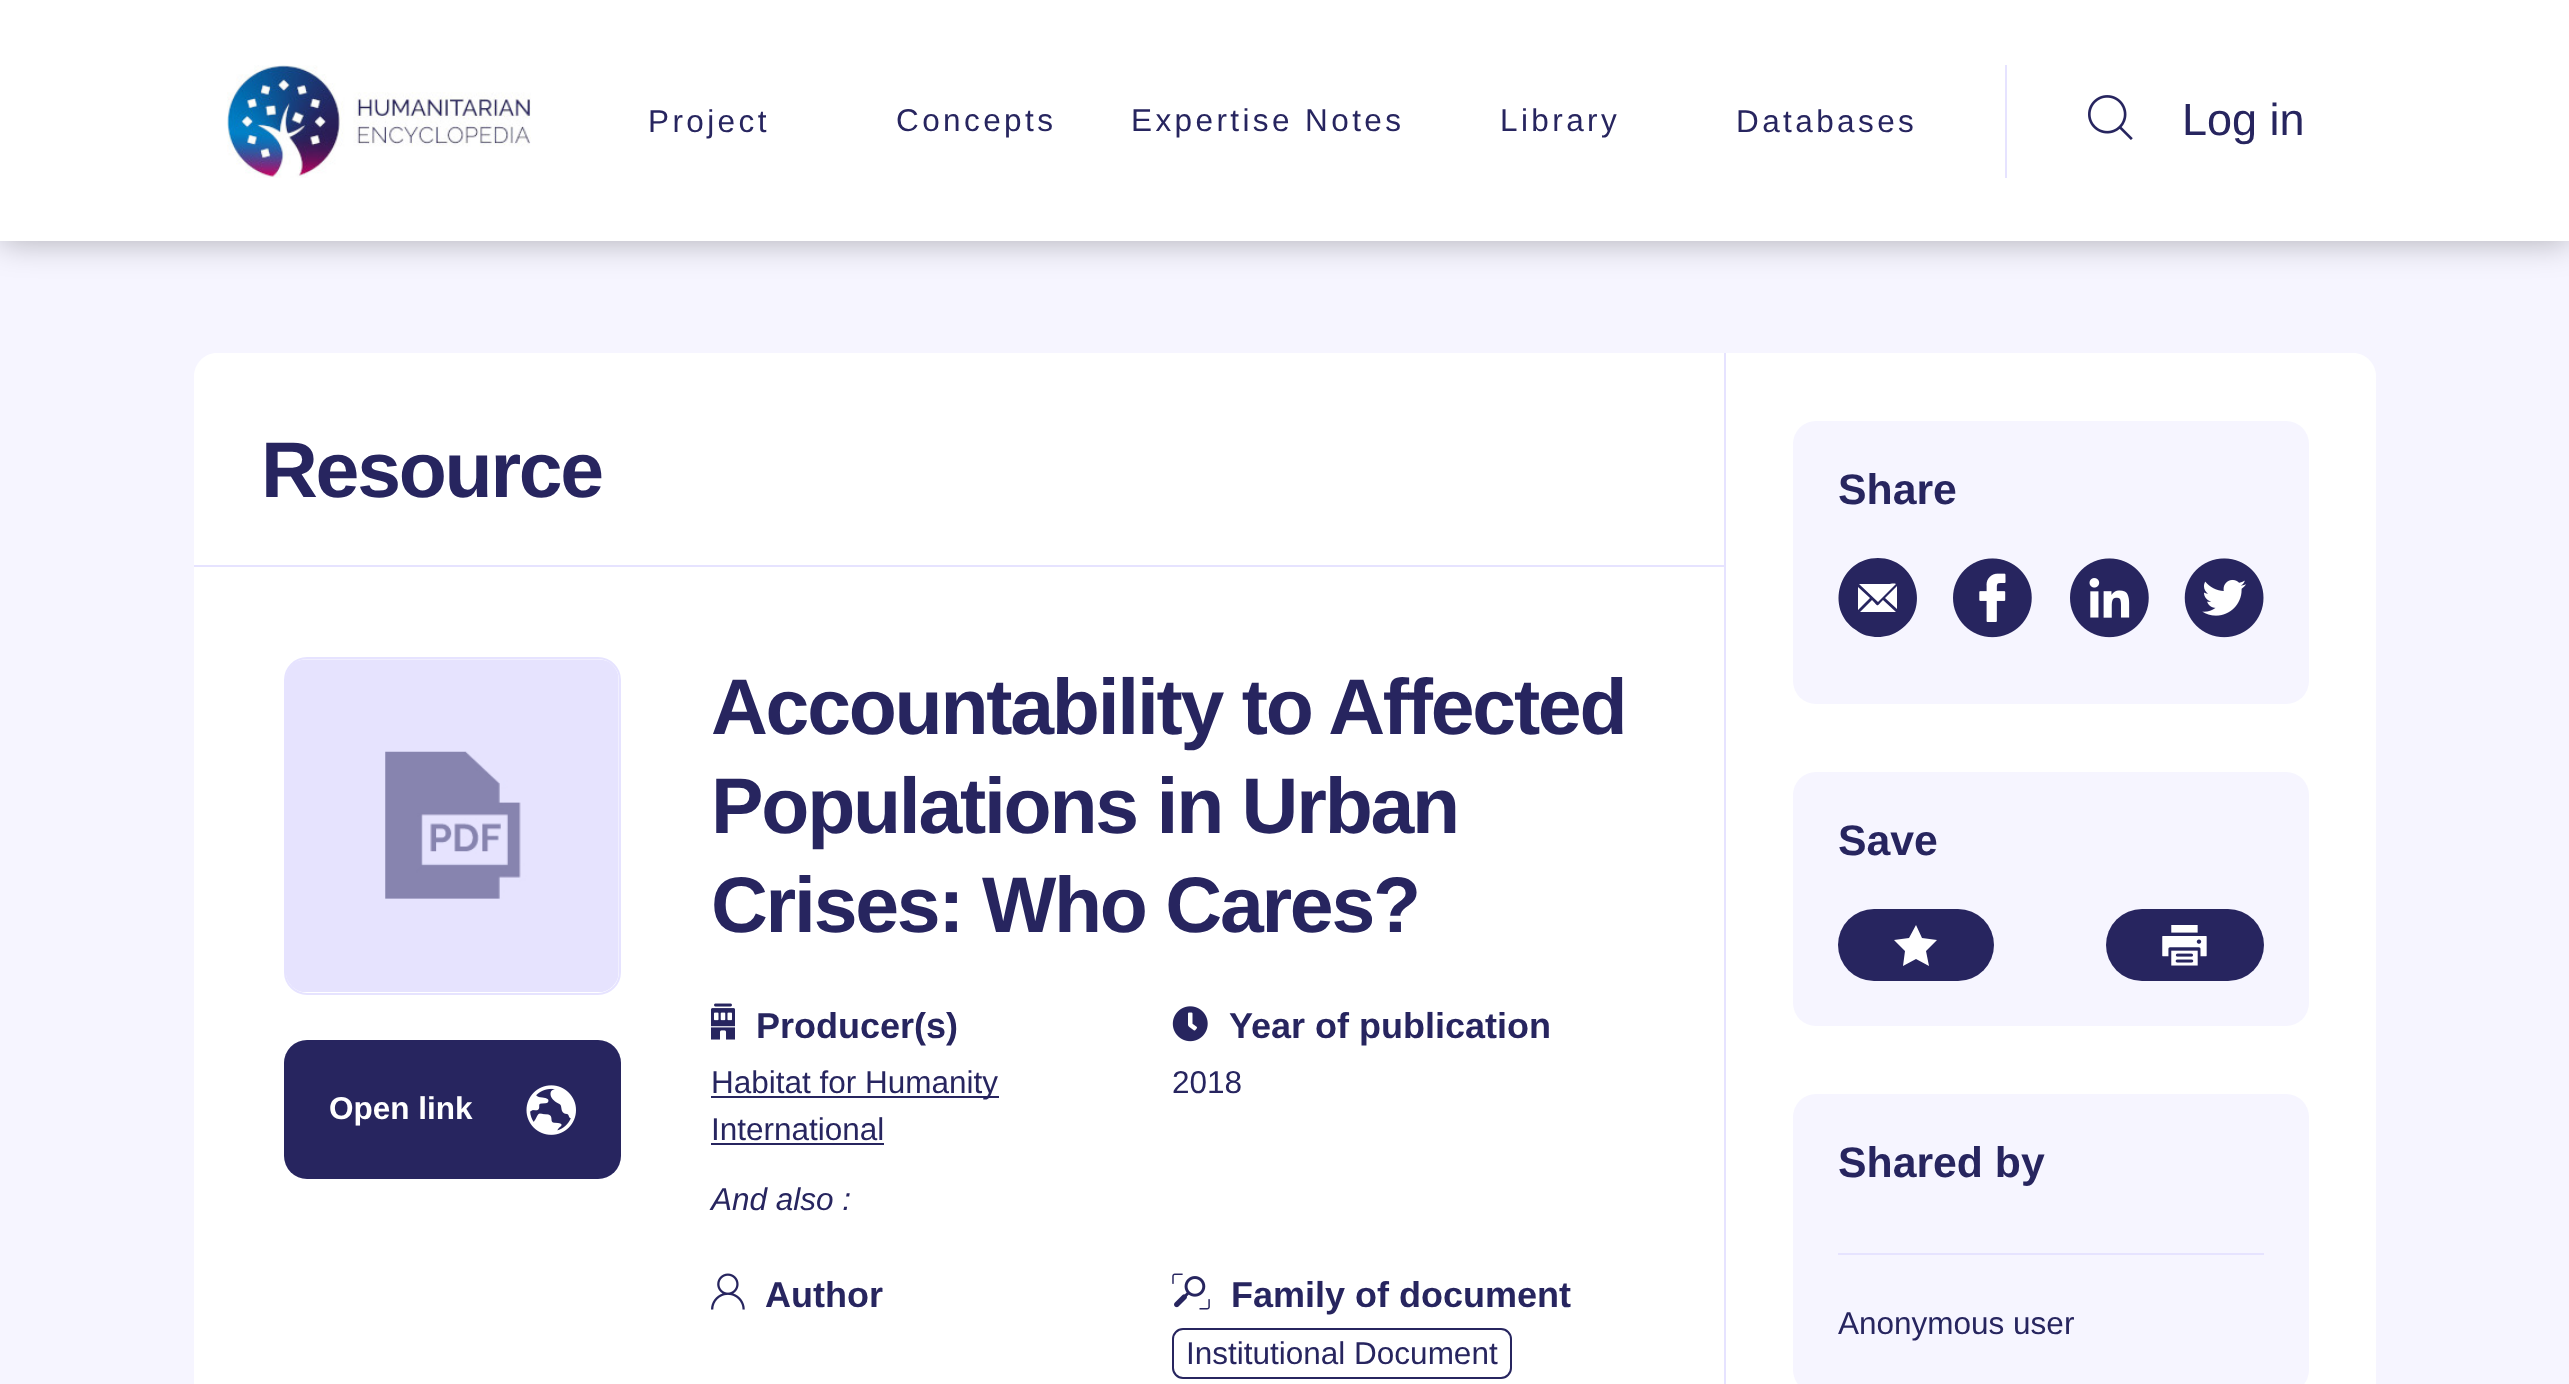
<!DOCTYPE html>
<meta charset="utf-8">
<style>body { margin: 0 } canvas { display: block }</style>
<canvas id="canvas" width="2569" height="1384"></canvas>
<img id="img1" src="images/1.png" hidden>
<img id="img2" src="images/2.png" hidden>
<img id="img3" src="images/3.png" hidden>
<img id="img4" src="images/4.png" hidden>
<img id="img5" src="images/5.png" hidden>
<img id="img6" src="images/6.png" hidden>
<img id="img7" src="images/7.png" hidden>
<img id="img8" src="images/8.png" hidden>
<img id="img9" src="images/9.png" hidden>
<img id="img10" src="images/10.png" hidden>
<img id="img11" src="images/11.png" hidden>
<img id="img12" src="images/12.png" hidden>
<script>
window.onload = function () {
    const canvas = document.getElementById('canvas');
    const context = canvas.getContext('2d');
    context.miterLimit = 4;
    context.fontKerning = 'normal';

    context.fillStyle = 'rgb(255, 255, 255)';
    context.fillRect(0, 0, 2569, 1384);
    context.fillStyle = 'rgb(246, 245, 255)';
    context.fillRect(0, 241, 2569, 1143);
    context.save();
    context.beginPath();
    context.moveTo(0, 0);
    context.lineTo(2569, 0);
    context.lineTo(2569, 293);
    context.lineTo(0, 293);
    context.closePath();
    context.moveTo(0, 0);
    context.lineTo(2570, 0);
    context.lineTo(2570, 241);
    context.lineTo(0, 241);
    context.closePath();
    context.clip('evenodd');
    context.fillStyle = 'rgba(0, 0, 0, 0.3)';
    context.filter = 'blur(17px)';
    context.beginPath();
    context.rect(0, 0, 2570, 241);
    context.fill();
    context.filter = 'none';
    context.restore();
    context.drawImage(document.getElementById('img1'), 227, 65, 304, 113);
    context.fillStyle = 'rgb(230, 227, 255)';
    context.fillRect(2005, 65, 2, 113);
    context.drawImage(document.getElementById('img2'), 2088, 95, 45, 45);
    context.fillStyle = 'rgb(255, 255, 255)';
    context.beginPath();
    context.moveTo(217, 353);
    context.lineTo(2353, 353);
    context.bezierCurveTo(2365.5, 353, 2376, 363.5, 2376, 376);
    context.lineTo(2376, 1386);
    context.lineTo(194, 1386);
    context.lineTo(194, 376);
    context.bezierCurveTo(194, 363.5, 204.5, 353, 217, 353);
    context.closePath();
    context.fill();
    context.fillStyle = 'rgb(230, 227, 255)';
    context.fillRect(194, 565, 1530, 2);
    context.beginPath();
    context.roundRect(285, 658, 335, 336, 22);
    context.strokeStyle = 'rgb(230, 227, 255)';
    context.lineWidth = 2;
    context.stroke();
    context.drawImage(document.getElementById('img3'), 286, 659, 333, 333);
    context.fillStyle = 'rgb(39, 37, 95)';
    context.beginPath();
    context.roundRect(284, 1040, 337, 139, 23);
    context.fill();
    context.drawImage(document.getElementById('img4'), 526, 1085, 50, 50);
    context.drawImage(document.getElementById('img5'), 711, 1003, 24, 37);
    context.fillRect(711, 1096, 288, 2);
    context.fillRect(711, 1143, 173, 2);
    context.drawImage(document.getElementById('img6'), 1172, 1006, 36, 36);
    context.drawImage(document.getElementById('img7'), 711, 1273, 34, 37);
    context.drawImage(document.getElementById('img8'), 1172, 1273, 38, 37);
    context.beginPath();
    context.roundRect(1173, 1329, 338, 49, 10);
    context.strokeStyle = 'rgb(39, 37, 95)';
    context.stroke();
    context.fillStyle = 'rgb(230, 227, 255)';
    context.fillRect(1724, 353, 2, 1031);
    context.fillStyle = 'rgb(246, 245, 255)';
    context.beginPath();
    context.roundRect(1793, 421, 516, 283, 23);
    context.fill();
    context.fillStyle = 'rgb(255, 255, 255)';
    context.beginPath();
    context.arc(1877.5, 597.5, 39.5, 0, 2 * Math.PI);
    context.fill();
    context.fillStyle = 'rgb(39, 37, 95)';
    context.beginPath();
    context.moveTo(1878, 558);
    context.bezierCurveTo(1839, 558, 1824, 609, 1856, 630);
    context.bezierCurveTo(1862, 635, 1870, 637, 1878, 637);
    context.bezierCurveTo(1885, 637, 1893, 635, 1900, 630);
    context.bezierCurveTo(1932, 609, 1916, 558, 1878, 558);
    context.closePath();
    context.moveTo(1861, 584);
    context.lineTo(1889, 584);
    context.bezierCurveTo(1890, 584, 1894, 583, 1896, 584);
    context.lineTo(1878, 602);
    context.lineTo(1859, 584);
    context.closePath();
    context.moveTo(1858, 609);
    context.lineTo(1858, 587);
    context.lineTo(1870, 598);
    context.lineTo(1858, 610);
    context.closePath();
    context.moveTo(1895, 612);
    context.lineTo(1860, 612);
    context.lineTo(1872, 600);
    context.bezierCurveTo(1879, 607, 1876, 607, 1883, 600);
    context.lineTo(1896, 612);
    context.closePath();
    context.moveTo(1897, 609);
    context.lineTo(1885, 598);
    context.lineTo(1897, 586);
    context.closePath();
    context.fill();
    context.fillStyle = 'rgb(255, 255, 255)';
    context.beginPath();
    context.arc(1992.5, 597.5, 39.5, 0, 2 * Math.PI);
    context.fill();
    context.drawImage(document.getElementById('img9'), 1953, 558, 79, 80);
    context.beginPath();
    context.arc(2109.5, 597.5, 39.5, 0, 2 * Math.PI);
    context.fill();
    context.drawImage(document.getElementById('img10'), 2070, 558, 79, 80);
    context.beginPath();
    context.arc(2224.5, 597.5, 39.5, 0, 2 * Math.PI);
    context.fill();
    context.drawImage(document.getElementById('img11'), 2184, 558, 80, 80);
    context.fillStyle = 'rgb(246, 245, 255)';
    context.beginPath();
    context.roundRect(1793, 772, 516, 254, 23);
    context.fill();
    context.fillStyle = 'rgb(39, 37, 95)';
    context.beginPath();
    context.roundRect(1838, 909, 156, 72, 36);
    context.fill();
    context.fillStyle = 'rgb(255, 255, 255)';
    context.beginPath();
    context.moveTo(1916, 959);
    context.lineTo(1903, 966);
    context.lineTo(1905, 951);
    context.lineTo(1894, 940);
    context.lineTo(1909, 938);
    context.lineTo(1916, 925);
    context.lineTo(1922, 938);
    context.lineTo(1937, 940);
    context.lineTo(1926, 951);
    context.lineTo(1929, 966);
    context.closePath();
    context.fill();
    context.fillStyle = 'rgb(39, 37, 95)';
    context.beginPath();
    context.roundRect(2106, 909, 158, 72, 36);
    context.fill();
    context.drawImage(document.getElementById('img12'), 2162, 925, 45, 41);
    context.fillStyle = 'rgb(246, 245, 255)';
    context.beginPath();
    context.roundRect(1793, 1094, 516, 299, 23);
    context.fill();
    context.fillStyle = 'rgb(230, 227, 255)';
    context.fillRect(1838, 1253, 426, 2);
    context.letterSpacing = '3.4px';
    context.font = '31.5px Liberation Sans';
    context.fillStyle = 'rgb(39, 37, 95)';
    context.fillText('Project', 648, 132);
    context.fillText('Concepts', 896, 131);
    context.fillText('Expertise Notes', 1131, 131);
    context.fillText('Library', 1500, 131);
    context.fillText('Databases', 1736, 132);
    context.letterSpacing = '0px';
    context.font = '45px Liberation Sans';
    context.fillText('Log in', 2182, 135);
    context.letterSpacing = '-2.25px';
    context.font = 'bold 78.75px Liberation Sans';
    context.fillText('Resource', 261, 497);
    context.letterSpacing = '0px';
    context.font = 'bold 31.5px Liberation Sans';
    context.fillStyle = 'rgb(255, 255, 255)';
    context.fillText('Open link', 329, 1119);
    context.letterSpacing = '-2.25px';
    context.font = 'bold 78.75px Liberation Sans';
    context.fillStyle = 'rgb(39, 37, 95)';
    context.fillText('Accountability to Affected', 711, 734);
    context.fillText('Populations in Urban', 711, 833);
    context.fillText('Crises: Who Cares?', 711, 932);
    context.letterSpacing = '0px';
    context.font = 'bold 36px Liberation Sans';
    context.fillText('Producer(s)', 756, 1038);
    context.font = '31.5px Liberation Sans';
    context.fillText('Habitat for Humanity', 711, 1093);
    context.fillText('International', 711, 1140);
    context.font = 'italic 31.5px Liberation Sans';
    context.fillText('And also :', 711, 1210);
    context.font = 'bold 36px Liberation Sans';
    context.fillText('Year of publication', 1229, 1038);
    context.font = '31.5px Liberation Sans';
    context.fillText('2018', 1172, 1093);
    context.font = 'bold 36px Liberation Sans';
    context.fillText('Author', 765, 1307);
    context.fillText('Family of document', 1231, 1307);
    context.font = '31.5px Liberation Sans';
    context.fillText('Institutional Document', 1186, 1364);
    context.font = 'bold 42.75px Liberation Sans';
    context.fillText('Share', 1838, 504);
    context.fillText('Save', 1838, 855);
    context.fillText('Shared by', 1838, 1177);
    context.font = '31.5px Liberation Sans';
    context.fillText('Anonymous user', 1838, 1334);
};
</script>
